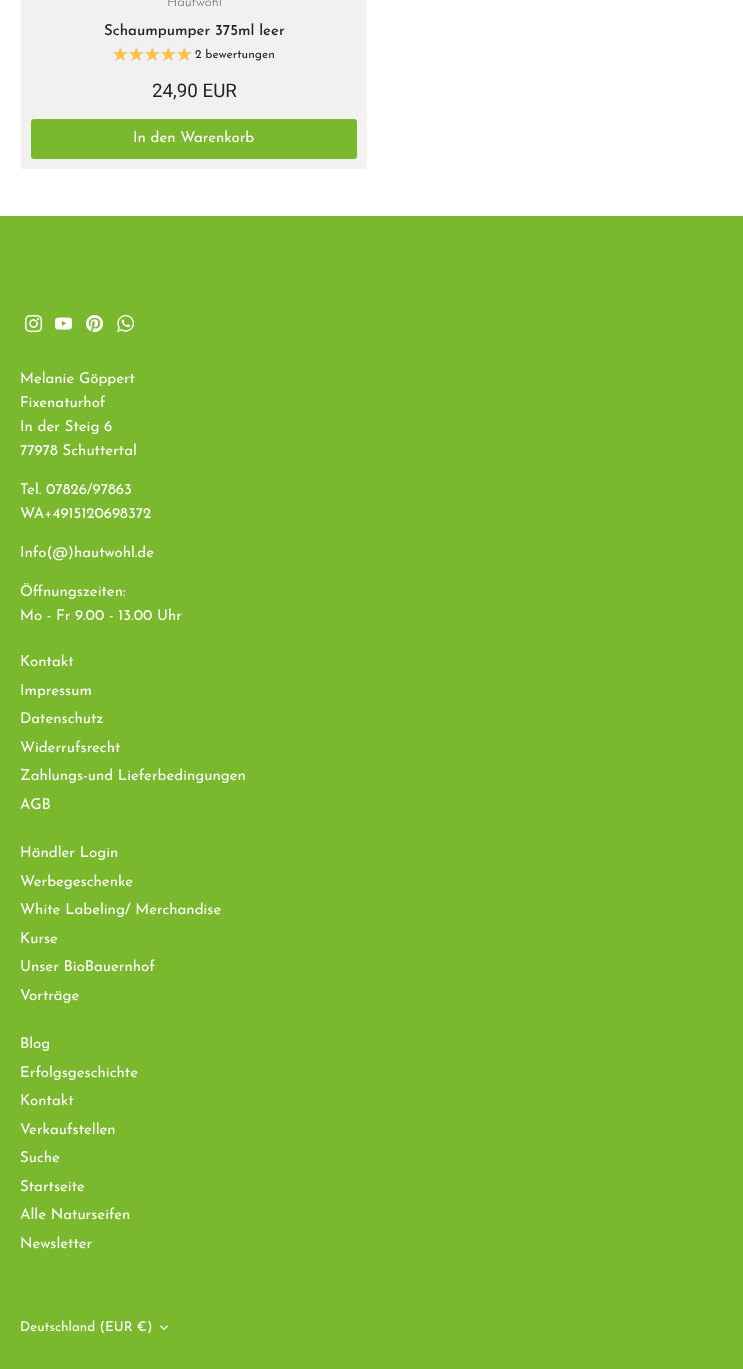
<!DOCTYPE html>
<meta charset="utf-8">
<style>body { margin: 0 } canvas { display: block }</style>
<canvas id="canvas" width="743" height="1369"></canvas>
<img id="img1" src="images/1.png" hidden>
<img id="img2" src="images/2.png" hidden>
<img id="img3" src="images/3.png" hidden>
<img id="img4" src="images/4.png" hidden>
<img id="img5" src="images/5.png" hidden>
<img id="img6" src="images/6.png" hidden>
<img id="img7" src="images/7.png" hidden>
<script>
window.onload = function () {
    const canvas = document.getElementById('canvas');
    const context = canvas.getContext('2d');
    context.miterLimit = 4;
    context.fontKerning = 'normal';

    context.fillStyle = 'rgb(122, 185, 45)';
    context.fillRect(0, 0, 743, 1369);
    context.fillStyle = 'rgb(255, 255, 255)';
    context.fillRect(0, 0, 743, 216);
    context.fillStyle = 'rgb(241, 241, 241)';
    context.fillRect(21, 0, 346, 169);
    context.drawImage(document.getElementById('img1'), 113, 47, 14, 14);
    context.drawImage(document.getElementById('img1'), 129, 47, 14, 14);
    context.drawImage(document.getElementById('img1'), 145, 47, 14, 14);
    context.drawImage(document.getElementById('img1'), 161, 47, 14, 14);
    context.drawImage(document.getElementById('img1'), 177, 47, 14, 14);
    context.drawImage(document.getElementById('img2'), 113, 47, 14, 14);
    context.drawImage(document.getElementById('img2'), 129, 47, 14, 14);
    context.drawImage(document.getElementById('img2'), 145, 47, 14, 14);
    context.drawImage(document.getElementById('img2'), 161, 47, 14, 14);
    context.drawImage(document.getElementById('img2'), 177, 47, 14, 14);
    context.fillStyle = 'rgb(122, 185, 45)';
    context.beginPath();
    context.roundRect(32, 120, 324, 38, 2);
    context.fill();
    context.strokeStyle = 'rgb(122, 185, 45)';
    context.lineWidth = 2;
    context.stroke();
    context.drawImage(document.getElementById('img3'), 25, 315, 18, 18);
    context.drawImage(document.getElementById('img4'), 55, 317, 18, 13);
    context.drawImage(document.getElementById('img5'), 86, 315, 18, 18);
    context.drawImage(document.getElementById('img6'), 117, 315, 18, 17);
    context.drawImage(document.getElementById('img7'), 160, 1325, 8, 5);
    context.font = '300 13.5px Josefin Sans';
    context.fillStyle = 'rgb(85, 87, 89)';
    context.fillText('Hautwohl', 167, 6);
    context.font = '500 15px Josefin Sans';
    context.fillStyle = 'rgb(33, 35, 38)';
    context.fillText('Schaumpumper 375ml leer', 104, 35);
    context.font = '12px Josefin Sans';
    context.fillText('2 bewertungen', 195, 58);
    context.font = '18.75px Roboto';
    context.fillText('24,90 EUR', 152, 97);
    context.font = '15px Josefin Sans';
    context.fillStyle = 'rgb(255, 255, 255)';
    context.fillText('In den Warenkorb', 133, 142);
    context.beginPath();
    context.moveTo(199, 143);
    context.bezierCurveTo(196.5, 145.5, 192.5, 145.5, 190, 143);
    context.stroke();
    context.fillText('Melanie Göppert', 20, 383);
    context.fillText('Fixenaturhof', 20, 407);
    context.fillText('In der Steig 6', 20, 431);
    context.fillText('77978 Schuttertal', 20, 455);
    context.fillText('Tel. 07826/97863', 20, 494);
    context.fillText('WA+4915120698372', 20, 518);
    context.fillText('Info(@)hautwohl.de', 20, 557);
    context.fillText('Öffnungszeiten:', 20, 596);
    context.fillText('Mo - Fr 9.00 - 13.00 Uhr', 20, 620);
    context.fillText('Kontakt', 20, 666);
    context.fillText('Impressum', 20, 695);
    context.fillText('Datenschutz', 20, 723);
    context.fillText('Widerrufsrecht', 20, 752);
    context.fillText('Zahlungs-und Lieferbedingungen', 20, 780);
    context.fillText('AGB', 20, 809);
    context.fillText('Händler Login', 20, 857);
    context.fillText('Werbegeschenke', 20, 886);
    context.fillText('White Labeling/ Merchandise', 20, 914);
    context.fillText('Kurse', 20, 943);
    context.fillText('Unser BioBauernhof', 20, 971);
    context.fillText('Vorträge', 20, 1000);
    context.fillText('Blog', 20, 1048);
    context.fillText('Erfolgsgeschichte', 20, 1077);
    context.fillText('Kontakt', 20, 1105);
    context.fillText('Verkaufstellen', 20, 1134);
    context.fillText('Suche', 20, 1162);
    context.fillText('Startseite', 20, 1191);
    context.fillText('Alle Naturseifen', 20, 1219);
    context.fillText('Newsletter', 20, 1248);
    context.font = '13.5px Josefin Sans';
    context.fillText('Deutschland (EUR €)', 20, 1331);
};
</script>
